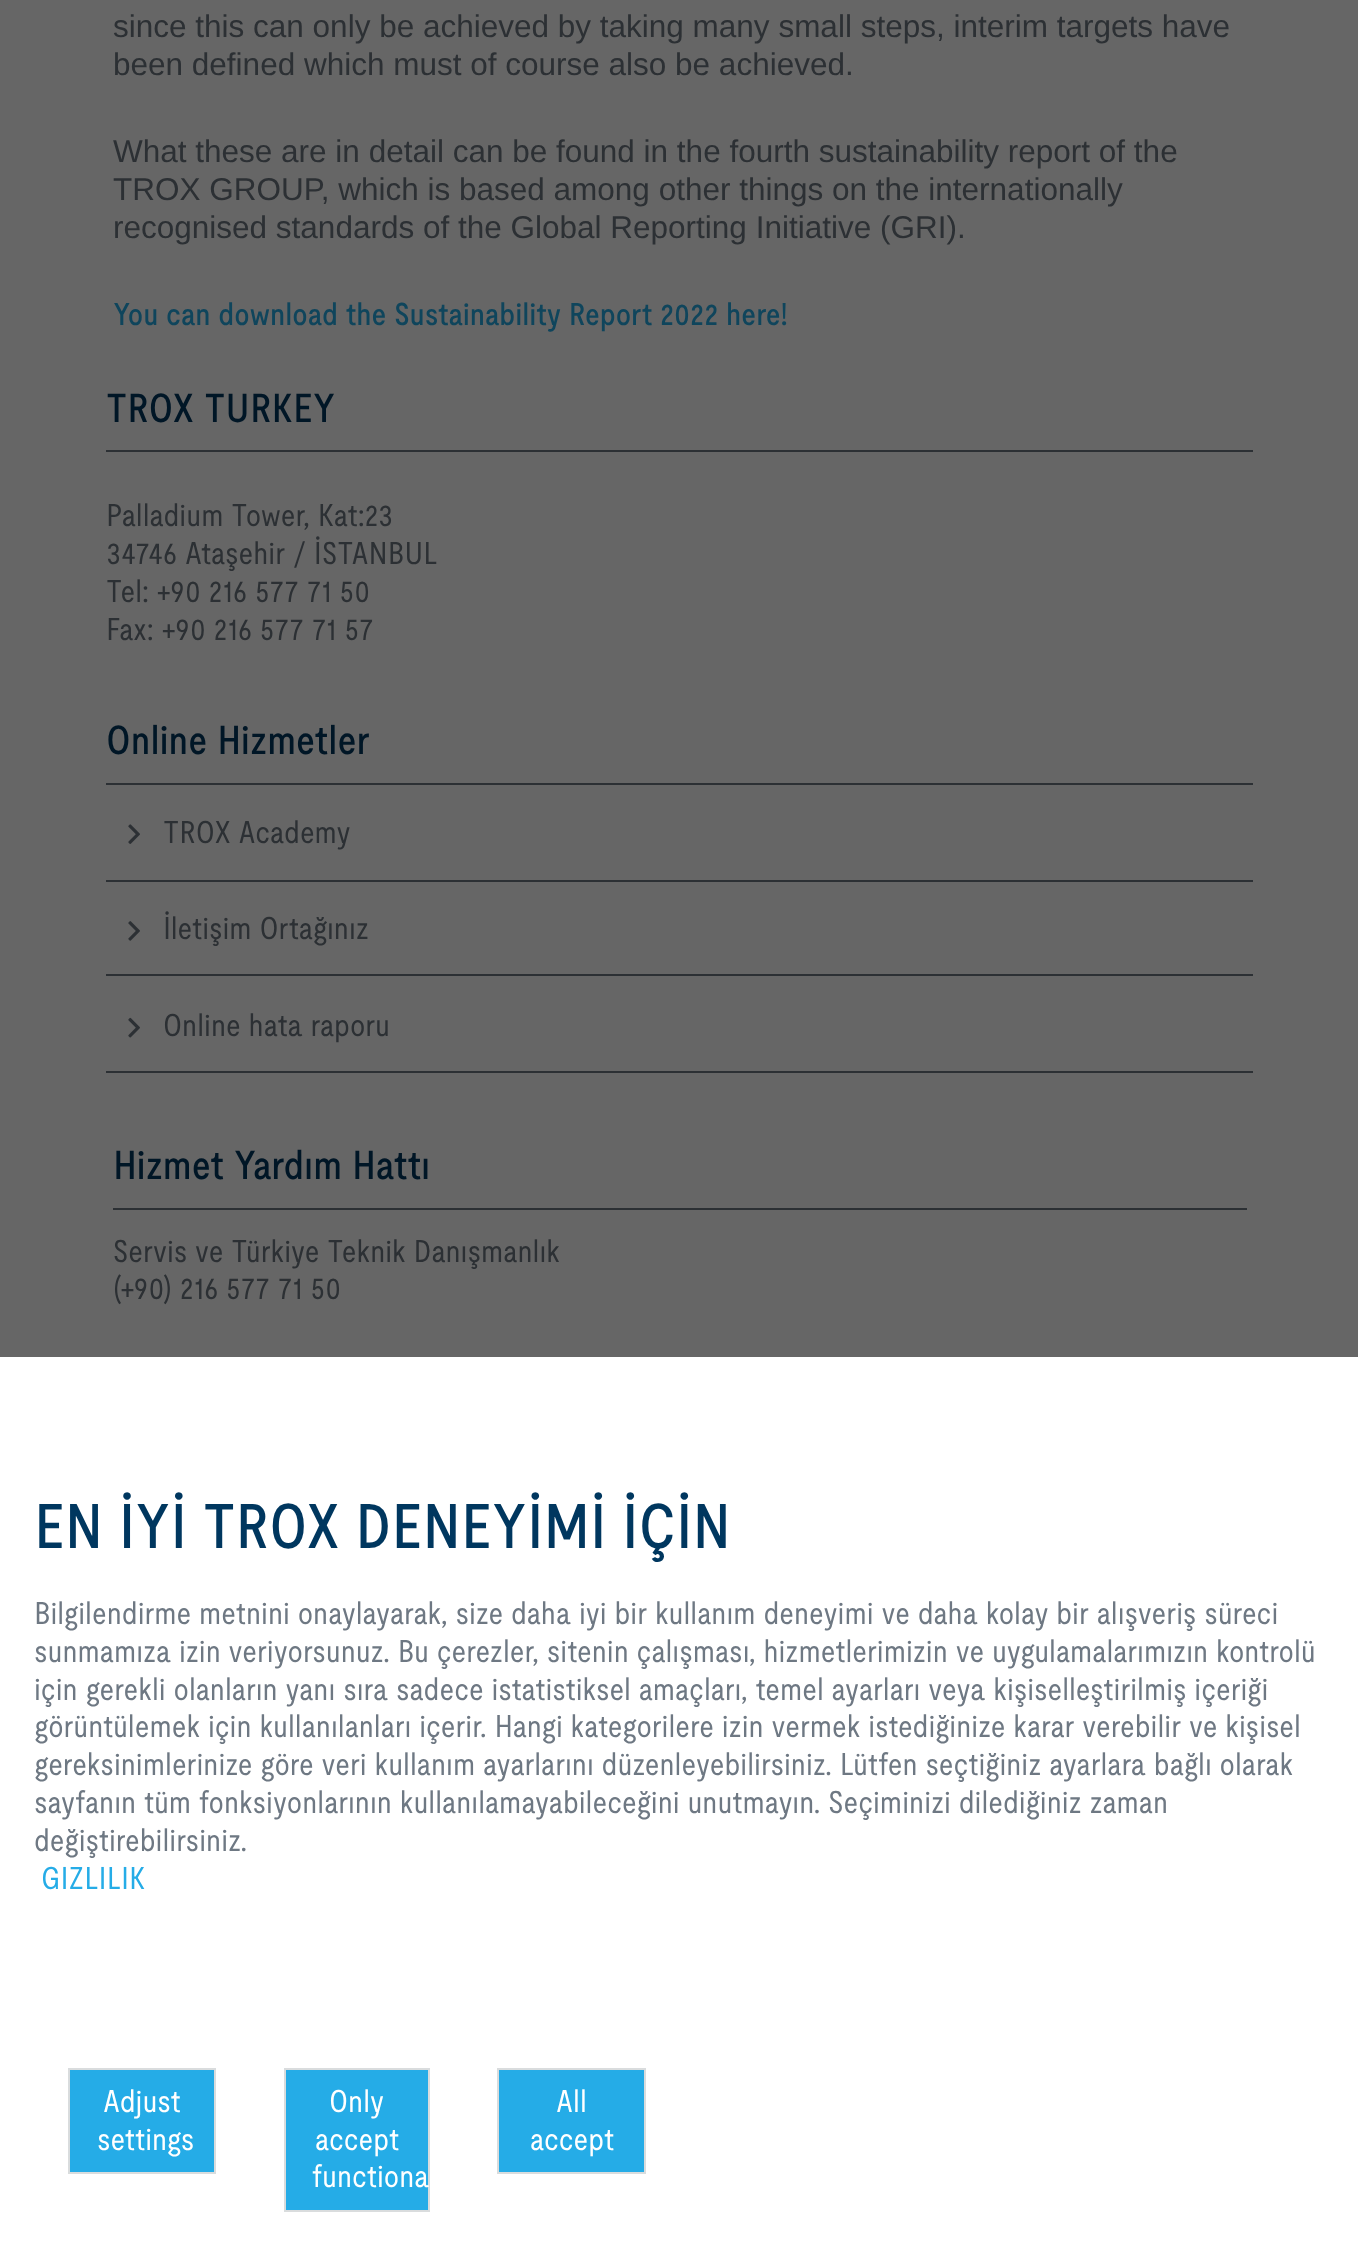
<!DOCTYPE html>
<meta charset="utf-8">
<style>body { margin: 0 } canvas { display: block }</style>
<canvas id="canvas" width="1358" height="2256"></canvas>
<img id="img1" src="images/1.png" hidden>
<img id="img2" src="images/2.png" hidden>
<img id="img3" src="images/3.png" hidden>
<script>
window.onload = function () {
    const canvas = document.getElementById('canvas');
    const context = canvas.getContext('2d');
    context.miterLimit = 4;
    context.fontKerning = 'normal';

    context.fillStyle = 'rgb(102, 102, 102)';
    context.fillRect(0, 0, 1358, 2256);
    context.fillStyle = 'rgb(44, 48, 52)';
    context.fillRect(106, 450, 1147, 2);
    context.fillRect(106, 783, 1147, 2);
    context.fillRect(106, 880, 1147, 2);
    context.drawImage(document.getElementById('img1'), 128, 824, 12, 20);
    context.fillRect(106, 974, 1147, 2);
    context.drawImage(document.getElementById('img2'), 128, 921, 12, 20);
    context.fillRect(106, 1071, 1147, 2);
    context.drawImage(document.getElementById('img3'), 128, 1017, 12, 21);
    context.fillRect(113, 1208, 1134, 2);
    context.fillStyle = 'rgb(255, 255, 255)';
    context.fillRect(0, 1357, 1358, 899);
    context.fillStyle = 'rgb(37, 172, 231)';
    context.beginPath();
    context.rect(69, 2069, 146, 104);
    context.fill();
    context.strokeStyle = 'rgb(217, 220, 221)';
    context.lineWidth = 2;
    context.stroke();
    context.beginPath();
    context.rect(285, 2069, 144, 142);
    context.fill();
    context.stroke();
    context.beginPath();
    context.rect(498, 2069, 147, 104);
    context.fill();
    context.stroke();
    context.font = '31.5px Liberation Sans';
    context.fillStyle = 'rgb(44, 48, 52)';
    context.fillText('since this can only be achieved by taking many small steps, interim targets have', 113, 37);
    context.fillText('been defined which must of course also be achieved.', 113, 75);
    context.fillText('What these are in detail can be found in the fourth sustainability report of the', 113, 162);
    context.fillText('TROX GROUP, which is based among other things on the internationally', 113, 200);
    context.fillText('recognised standards of the Global Reporting Initiative (GRI).', 113, 238);
    context.font = '500 31.5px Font';
    context.fillStyle = 'rgb(15, 69, 92)';
    context.fillText('You can download the Sustainability Report 2022 here!', 113, 325);
    context.font = '500 40.5px Font';
    context.fillStyle = 'rgb(0, 22, 38)';
    context.fillText('TROX TURKEY', 106, 422);
    context.font = '31.5px Font';
    context.fillStyle = 'rgb(44, 48, 52)';
    context.fillText('Palladium Tower, Kat:23', 106, 526);
    context.fillText('34746 Ataşehir / İSTANBUL', 106, 564);
    context.fillText('Tel: +90 216 577 71 50', 106, 602);
    context.fillText('Fax: +90 216 577 71 57', 106, 640);
    context.font = '500 40.5px Font';
    context.fillStyle = 'rgb(0, 22, 38)';
    context.fillText('Online Hizmetler', 106, 754);
    context.font = '31.5px Font';
    context.fillStyle = 'rgb(44, 48, 52)';
    context.fillText('TROX Academy', 163, 843);
    context.fillText('İletişim Ortağınız', 163, 939);
    context.fillText('Online hata raporu', 163, 1036);
    context.font = '500 40.5px Font';
    context.fillStyle = 'rgb(0, 22, 38)';
    context.fillText('Hizmet Yardım Hattı', 113, 1179);
    context.font = '31.5px Font';
    context.fillStyle = 'rgb(44, 48, 52)';
    context.fillText('Servis ve Türkiye Teknik Danışmanlık', 113, 1262);
    context.fillText('(+90) 216 577 71 50', 113, 1299);
    context.font = '500 63px Font';
    context.fillStyle = 'rgb(0, 55, 95)';
    context.fillText('EN İYİ TROX DENEYİMİ İÇİN', 34, 1548);
    context.font = '31.5px Font';
    context.fillStyle = 'rgb(110, 120, 131)';
    context.fillText('Bilgilendirme metnini onaylayarak, size daha iyi bir kullanım deneyimi ve daha kolay bir alışveriş süreci', 34, 1624);
    context.fillText('sunmamıza izin veriyorsunuz. Bu çerezler, sitenin çalışması, hizmetlerimizin ve uygulamalarımızın kontrolü', 34, 1662);
    context.fillText('için gerekli olanların yanı sıra sadece istatistiksel amaçları, temel ayarları veya kişiselleştirilmiş içeriği', 34, 1700);
    context.fillText('görüntülemek için kullanılanları içerir. Hangi kategorilere izin vermek istediğinize karar verebilir ve kişisel', 34, 1737);
    context.fillText('gereksinimlerinize göre veri kullanım ayarlarını düzenleyebilirsiniz. Lütfen seçtiğiniz ayarlara bağlı olarak', 34, 1775);
    context.fillText('sayfanın tüm fonksiyonlarının kullanılamayabileceğini unutmayın. Seçiminizi dilediğiniz zaman', 34, 1813);
    context.fillText('değiştirebilirsiniz.', 34, 1851);
    context.fillStyle = 'rgb(37, 172, 231)';
    context.fillText('GIZLILIK', 41, 1889);
    context.fillStyle = 'rgb(255, 255, 255)';
    context.fillText('Adjust', 103, 2112);
    context.fillText('settings', 97, 2150);
    context.fillText('Only', 329, 2112);
    context.fillText('accept', 315, 2150);
    context.fillText('functiona', 312, 2187);
    context.fillText('All', 556, 2112);
    context.fillText('accept', 530, 2150);
};
</script>
